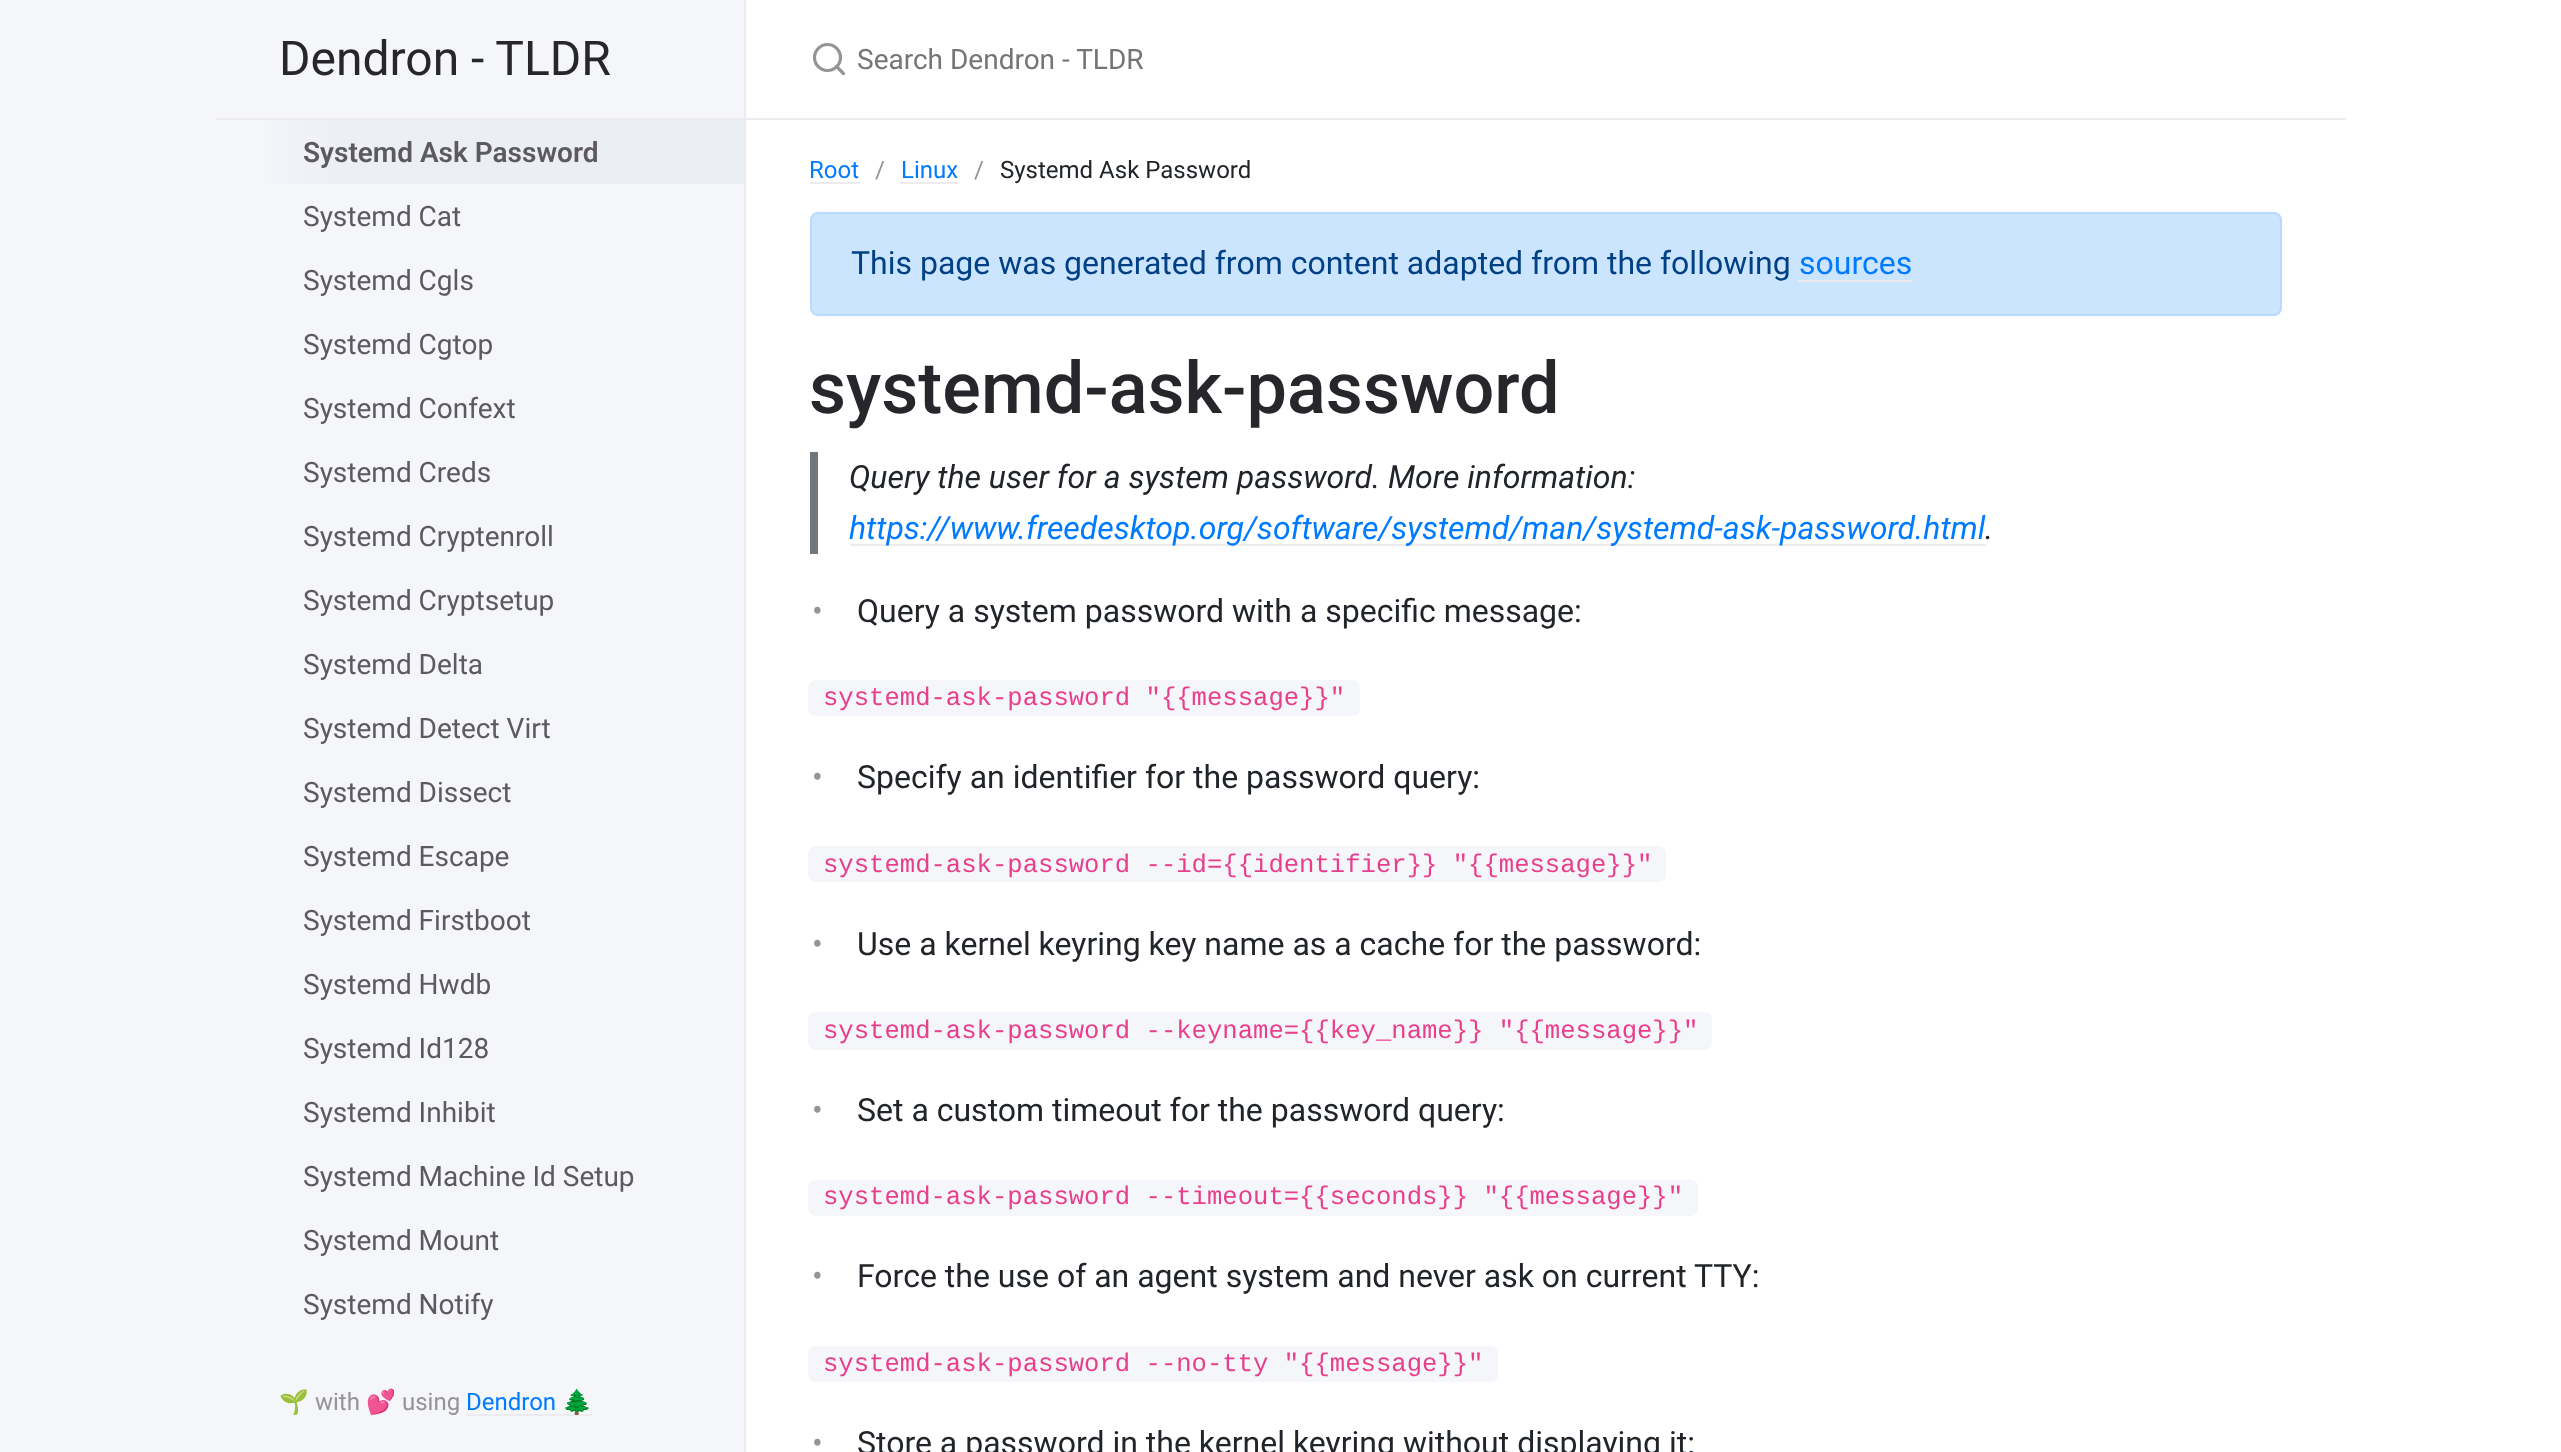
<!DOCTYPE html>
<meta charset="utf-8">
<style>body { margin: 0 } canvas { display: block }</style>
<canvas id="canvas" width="2561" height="1452"></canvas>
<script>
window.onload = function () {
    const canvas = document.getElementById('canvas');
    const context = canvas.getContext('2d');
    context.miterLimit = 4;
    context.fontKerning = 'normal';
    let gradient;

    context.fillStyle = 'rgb(255, 255, 255)';
    context.fillRect(0, 0, 2561, 1452);
    context.fillStyle = 'rgb(245, 246, 250)';
    context.fillRect(0, 0, 744, 1452);
    context.fillStyle = 'rgb(238, 235, 238)';
    context.fillRect(744, 0, 2, 1452);
    context.fillRect(216, 118, 528, 2);
    gradient = context.createLinearGradient(744, 152, 240, 152);
    gradient.addColorStop(0, 'rgb(235, 237, 245)');
    gradient.addColorStop(0.8, 'rgb(237, 239, 246)');
    gradient.addColorStop(1, 'rgb(245, 246, 250)');
    context.fillStyle = gradient;
    context.fillRect(271, 120, 473, 64);
    context.fillStyle = 'rgb(238, 235, 238)';
    context.fillRect(466, 1414, 126, 2);
    context.fillRect(746, 118, 1600, 2);
    context.beginPath();
    context.arc(827.5, 57.5, 13, 0, 2 * Math.PI);
    context.strokeStyle = 'rgb(149, 147, 150)';
    context.lineWidth = 3.2;
    context.stroke();
    context.beginPath();
    context.moveTo(843.5, 73.5);
    context.lineTo(836.5, 66.5);
    context.lineCap = 'round';
    context.lineJoin = 'round';
    context.stroke();
    context.fillRect(810, 182, 50, 2);
    context.fillRect(900, 182, 58, 2);
    context.fillStyle = 'rgb(204, 229, 255)';
    context.beginPath();
    context.roundRect(811, 213, 1470, 102, 7);
    context.fill();
    context.strokeStyle = 'rgb(184, 218, 255)';
    context.lineWidth = 2;
    context.lineJoin = 'miter';
    context.stroke();
    context.fillStyle = 'rgb(238, 235, 238)';
    context.fillRect(1798, 280, 114, 2);
    context.fillStyle = 'rgb(111, 119, 125)';
    context.fillRect(810, 452, 8, 102);
    context.fillStyle = 'rgb(238, 235, 238)';
    context.fillRect(850, 544, 1136, 2);
    context.fillStyle = 'rgb(245, 246, 250)';
    context.beginPath();
    context.roundRect(808, 680, 16, 36, [8, 0, 0, 8]);
    context.fill();
    context.fillRect(824, 680, 522, 36);
    context.beginPath();
    context.roundRect(1346, 680, 14, 36, [0, 7, 7, 0]);
    context.fill();
    context.beginPath();
    context.roundRect(808, 846, 16, 36, [8, 0, 0, 8]);
    context.fill();
    context.fillRect(824, 846, 828, 36);
    context.beginPath();
    context.roundRect(1652, 846, 14, 36, [0, 7, 7, 0]);
    context.fill();
    context.beginPath();
    context.roundRect(808, 1012, 16, 38, [8, 0, 0, 8]);
    context.fill();
    context.fillRect(824, 1012, 874, 38);
    context.beginPath();
    context.roundRect(1698, 1012, 14, 38, [0, 7, 7, 0]);
    context.fill();
    context.beginPath();
    context.roundRect(808, 1180, 16, 36, [8, 0, 0, 8]);
    context.fill();
    context.fillRect(824, 1180, 860, 36);
    context.beginPath();
    context.roundRect(1684, 1180, 14, 36, [0, 7, 7, 0]);
    context.fill();
    context.beginPath();
    context.roundRect(808, 1346, 16, 36, [8, 0, 0, 8]);
    context.fill();
    context.fillRect(824, 1346, 660, 36);
    context.beginPath();
    context.roundRect(1484, 1346, 14, 36, [0, 7, 7, 0]);
    context.fill();
    context.font = '48px Roboto';
    context.fillStyle = 'rgb(39, 38, 43)';
    context.fillText('Dendron - TLDR', 279, 75);
    context.font = '600 28px Roboto';
    context.fillStyle = 'rgb(92, 89, 98)';
    context.fillText('Systemd Ask Password', 303, 162);
    context.font = '28px Roboto';
    context.fillText('Systemd Cat', 303, 226);
    context.fillText('Systemd Cgls', 303, 290);
    context.fillText('Systemd Cgtop', 303, 354);
    context.fillText('Systemd Confext', 303, 418);
    context.fillText('Systemd Creds', 303, 482);
    context.fillText('Systemd Cryptenroll', 303, 546);
    context.fillText('Systemd Cryptsetup', 303, 610);
    context.fillText('Systemd Delta', 303, 674);
    context.fillText('Systemd Detect Virt', 303, 738);
    context.fillText('Systemd Dissect', 303, 802);
    context.fillText('Systemd Escape', 303, 866);
    context.fillText('Systemd Firstboot', 303, 930);
    context.fillText('Systemd Hwdb', 303, 994);
    context.fillText('Systemd Id128', 303, 1058);
    context.fillText('Systemd Inhibit', 303, 1122);
    context.fillText('Systemd Machine Id Setup', 303, 1186);
    context.fillText('Systemd Mount', 303, 1250);
    context.fillText('Systemd Notify', 303, 1314);
    context.font = '24px Noto Color Emoji';
    context.fillStyle = 'rgb(149, 147, 150)';
    context.fillText('🌱', 279, 1410);
    context.font = '24px Roboto';
    context.fillText('with', 315, 1410);
    context.font = '24px Noto Color Emoji';
    context.fillText('💕', 366, 1410);
    context.font = '24px Roboto';
    context.fillText('using', 402, 1410);
    context.fillStyle = 'rgb(0, 123, 255)';
    context.fillText('Dendron', 466, 1410);
    context.font = '24px Noto Color Emoji';
    context.fillText('🌲', 562, 1410);
    context.font = '28px Roboto';
    context.fillStyle = 'rgb(117, 117, 117)';
    context.fillText('Search Dendron - TLDR', 857, 69);
    context.font = '24px Roboto';
    context.fillStyle = 'rgb(0, 123, 255)';
    context.fillText('Root', 809, 178);
    context.fillStyle = 'rgb(149, 147, 150)';
    context.fillText('/', 875, 178);
    context.fillStyle = 'rgb(0, 123, 255)';
    context.fillText('Linux', 901, 178);
    context.fillStyle = 'rgb(149, 147, 150)';
    context.fillText('/', 974, 178);
    context.fillStyle = 'rgb(33, 37, 41)';
    context.fillText('Systemd Ask Password', 1000, 178);
    context.font = '32px Roboto';
    context.fillStyle = 'rgb(0, 64, 133)';
    context.fillText('This page was generated from content adapted from the following', 851, 274);
    context.fillStyle = 'rgb(0, 123, 255)';
    context.fillText('sources', 1799, 274);
    context.font = '500 72px Roboto';
    context.fillStyle = 'rgb(39, 38, 43)';
    context.fillText('systemd-ask-password', 809, 413);
    context.font = 'italic 32px Roboto';
    context.fillStyle = 'rgb(33, 37, 41)';
    context.fillText('Query the user for a system password. More information:', 849, 488);
    context.fillStyle = 'rgb(0, 123, 255)';
    context.fillText('https://www.freedesktop.org/software/systemd/man/systemd-ask-password.html', 849, 539);
    context.fillStyle = 'rgb(33, 37, 41)';
    context.fillText('.', 1985, 539);
    context.font = '32px Roboto';
    context.fillStyle = 'rgb(149, 147, 150)';
    context.fillText('•', 812, 622);
    context.fillStyle = 'rgb(33, 37, 41)';
    context.fillText('Query a system password with a specific message:', 857, 622);
    context.font = '25.6px Liberation Mono';
    context.fillStyle = 'rgb(232, 62, 140)';
    context.fillText('systemd-ask-password "{{message}}"', 823, 705);
    context.font = '32px Roboto';
    context.fillStyle = 'rgb(149, 147, 150)';
    context.fillText('•', 812, 788);
    context.fillStyle = 'rgb(33, 37, 41)';
    context.fillText('Specify an identifier for the password query:', 857, 788);
    context.font = '25.6px Liberation Mono';
    context.fillStyle = 'rgb(232, 62, 140)';
    context.fillText('systemd-ask-password --id={{identifier}} "{{message}}"', 823, 872);
    context.font = '32px Roboto';
    context.fillStyle = 'rgb(149, 147, 150)';
    context.fillText('•', 812, 955);
    context.fillStyle = 'rgb(33, 37, 41)';
    context.fillText('Use a kernel keyring key name as a cache for the password:', 857, 955);
    context.font = '25.6px Liberation Mono';
    context.fillStyle = 'rgb(232, 62, 140)';
    context.fillText('systemd-ask-password --keyname={{key_name}} "{{message}}"', 823, 1038);
    context.font = '32px Roboto';
    context.fillStyle = 'rgb(149, 147, 150)';
    context.fillText('•', 812, 1121);
    context.fillStyle = 'rgb(33, 37, 41)';
    context.fillText('Set a custom timeout for the password query:', 857, 1121);
    context.font = '25.6px Liberation Mono';
    context.fillStyle = 'rgb(232, 62, 140)';
    context.fillText('systemd-ask-password --timeout={{seconds}} "{{message}}"', 823, 1204);
    context.font = '32px Roboto';
    context.fillStyle = 'rgb(149, 147, 150)';
    context.fillText('•', 812, 1287);
    context.fillStyle = 'rgb(33, 37, 41)';
    context.fillText('Force the use of an agent system and never ask on current TTY:', 857, 1287);
    context.font = '25.6px Liberation Mono';
    context.fillStyle = 'rgb(232, 62, 140)';
    context.fillText('systemd-ask-password --no-tty "{{message}}"', 823, 1371);
    context.font = '32px Roboto';
    context.fillStyle = 'rgb(149, 147, 150)';
    context.fillText('•', 812, 1454);
    context.fillStyle = 'rgb(33, 37, 41)';
    context.fillText('Store a password in the kernel keyring without displaying it:', 857, 1454);
};
</script>
